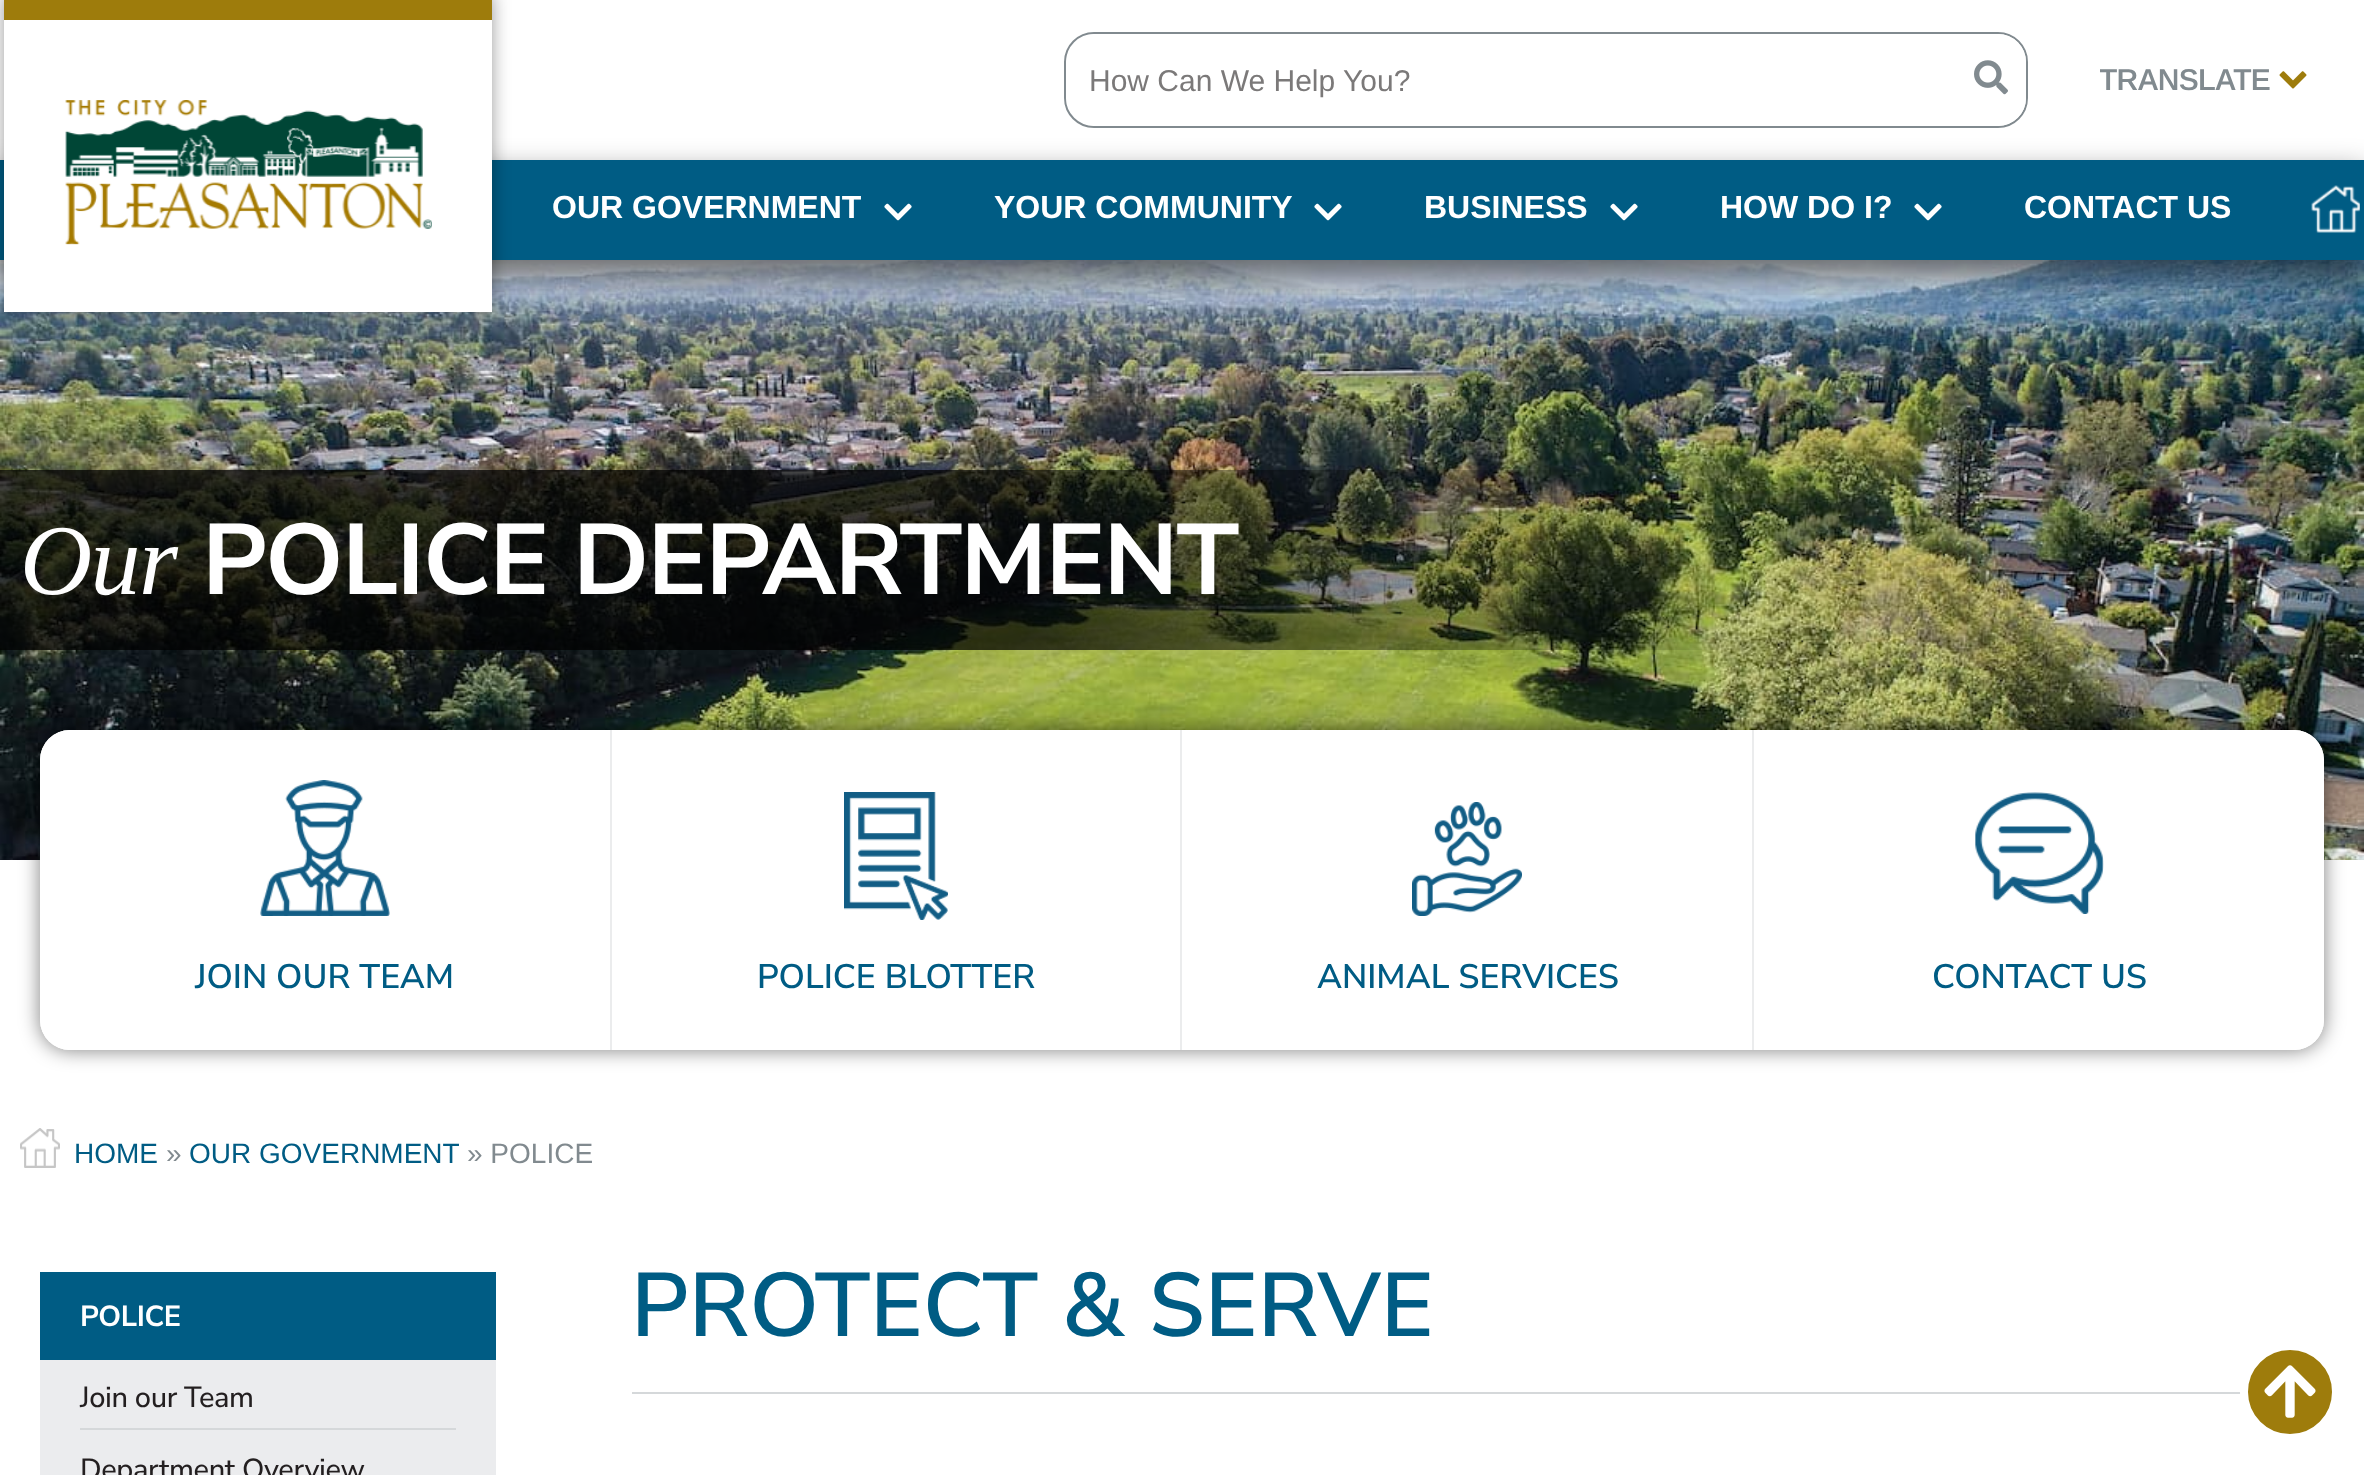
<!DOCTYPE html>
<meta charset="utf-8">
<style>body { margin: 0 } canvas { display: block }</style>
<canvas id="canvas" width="2364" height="1475"></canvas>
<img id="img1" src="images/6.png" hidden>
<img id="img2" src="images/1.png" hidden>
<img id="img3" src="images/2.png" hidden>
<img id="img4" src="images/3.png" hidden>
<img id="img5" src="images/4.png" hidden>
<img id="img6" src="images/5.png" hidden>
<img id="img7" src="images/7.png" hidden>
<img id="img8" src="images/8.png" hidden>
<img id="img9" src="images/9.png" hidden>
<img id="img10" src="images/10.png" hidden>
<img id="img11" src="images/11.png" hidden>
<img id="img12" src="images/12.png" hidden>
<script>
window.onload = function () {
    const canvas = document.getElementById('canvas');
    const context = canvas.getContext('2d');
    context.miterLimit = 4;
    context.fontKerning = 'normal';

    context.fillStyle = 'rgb(255, 255, 255)';
    context.fillRect(0, 0, 2364, 1475);
    context.drawImage(document.getElementById('img1'), 0, 260, 2364, 600);
    context.save();
    context.beginPath();
    context.rect(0, 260, 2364, 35);
    context.clip();
    context.fillStyle = 'rgba(0, 0, 0, 0.1)';
    context.filter = 'blur(30px)';
    context.beginPath();
    context.rect(0, 10, 2364, 260);
    context.fill();
    context.filter = 'none';
    context.restore();
    context.beginPath();
    context.roundRect(1065, 33, 962, 94, 29);
    context.strokeStyle = 'rgb(129, 138, 143)';
    context.lineWidth = 2;
    context.stroke();
    context.save();
    context.beginPath();
    context.roundRect(1066, 34, 960, 92, 28);
    context.clip();
    context.beginPath();
    context.roundRect(1066, 34, 888, 92, 30);
    context.fill();
    context.restore();
    context.beginPath();
    context.roundRect(1954, 34, 72, 92, [0, 28, 28, 0]);
    context.fill();
    context.drawImage(document.getElementById('img2'), 1974, 60, 34, 35);
    context.drawImage(document.getElementById('img3'), 2279, 71, 28, 18);
    context.fillStyle = 'rgba(0, 0, 0, 0.5)';
    context.filter = 'blur(15px)';
    context.beginPath();
    context.rect(-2, 172, 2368, 104);
    context.fill();
    context.filter = 'none';
    context.fillStyle = 'rgb(0, 92, 132)';
    context.fillRect(0, 160, 2364, 100);
    context.fillStyle = 'rgba(0, 0, 0, 0.4)';
    context.filter = 'blur(9px)';
    context.beginPath();
    context.rect(4, -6, 488, 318);
    context.fill();
    context.filter = 'none';
    context.fillStyle = 'rgb(255, 255, 255)';
    context.fillRect(4, 20, 488, 292);
    context.fillStyle = 'rgb(158, 124, 12)';
    context.fillRect(4, 0, 488, 20);
    context.drawImage(document.getElementById('img4'), 65, 100, 367, 145);
    context.drawImage(document.getElementById('img5'), 884, 203, 28, 18);
    context.drawImage(document.getElementById('img5'), 1314, 203, 28, 18);
    context.drawImage(document.getElementById('img5'), 1610, 203, 28, 18);
    context.drawImage(document.getElementById('img5'), 1914, 203, 28, 18);
    context.drawImage(document.getElementById('img6'), 2311, 185, 49, 48);
    context.fillStyle = 'rgba(0, 0, 0, 0.5)';
    context.filter = 'blur(10px)';
    context.beginPath();
    context.roundRect(40, 730, 2284, 320, 30);
    context.fill();
    context.filter = 'none';
    context.fillStyle = 'rgb(255, 255, 255)';
    context.beginPath();
    context.roundRect(40, 730, 2284, 320, 30);
    context.fill();
    context.beginPath();
    context.roundRect(40, 730, 570, 320, [30, 0, 0, 30]);
    context.fill();
    context.drawImage(document.getElementById('img7'), 260, 780, 130, 136);
    context.fillStyle = 'rgb(235, 236, 237)';
    context.fillRect(610, 730, 2, 320);
    context.drawImage(document.getElementById('img8'), 844, 792, 104, 128);
    context.fillRect(1180, 730, 2, 320);
    context.drawImage(document.getElementById('img9'), 1412, 802, 110, 114);
    context.fillRect(1752, 730, 2, 320);
    context.fillStyle = 'rgb(255, 255, 255)';
    context.beginPath();
    context.roundRect(1754, 730, 570, 320, [0, 30, 30, 0]);
    context.fill();
    context.drawImage(document.getElementById('img10'), 1975, 792, 129, 122);
    context.drawImage(document.getElementById('img11'), 20, 1128, 40, 40);
    context.fillStyle = 'rgb(235, 236, 238)';
    context.fillRect(40, 1360, 456, 115);
    context.fillStyle = 'rgb(0, 92, 132)';
    context.fillRect(40, 1272, 456, 88);
    context.fillStyle = 'rgb(213, 216, 218)';
    context.fillRect(80, 1428, 376, 2);
    context.fillRect(632, 1392, 1609, 2);
    context.fillStyle = 'rgb(158, 124, 12)';
    context.beginPath();
    context.arc(2290, 1392, 46, 0, 2 * Math.PI);
    context.fill();
    context.strokeStyle = 'rgb(255, 255, 255)';
    context.lineWidth = 8;
    context.stroke();
    context.drawImage(document.getElementById('img12'), 2264, 1365, 52, 53);
    context.font = '30px Arimo';
    context.fillStyle = 'rgb(123, 121, 121)';
    context.fillText('How Can We Help You?', 1089, 91);
    context.save();
    context.beginPath();
    context.rect(2100, 58, 212, 44);
    context.clip();
    context.letterSpacing = '-0.75px';
    context.font = '600 30px Arimo';
    context.fillStyle = 'rgb(129, 138, 143)';
    context.fillText('TRANSLATE', 2099, 90);
    context.restore();
    context.font = 'bold 32px Arimo';
    context.fillStyle = 'rgb(255, 255, 255)';
    context.fillText('OUR GOVERNMENT', 552, 218);
    context.fillText('YOUR COMMUNITY', 994, 218);
    context.fillText('BUSINESS', 1424, 218);
    context.fillText('HOW DO I?', 1720, 218);
    context.fillText('CONTACT US', 2024, 218);
    context.letterSpacing = '-1.6px';
    context.font = 'italic 100px Liberation Serif';
    context.fillText('Our', 20, 594);
    context.font = 'bold 100px Nunito Sans';
    context.fillText('POLICE DEPARTMENT', 202, 594);
    context.letterSpacing = '0px';
    context.font = '600 34px Nunito Sans';
    context.fillStyle = 'rgb(0, 92, 132)';
    context.fillText('JOIN OUR TEAM', 195, 988);
    context.fillText('POLICE BLOTTER', 757, 988);
    context.fillText('ANIMAL SERVICES', 1317, 988);
    context.fillText('CONTACT US', 1932, 988);
    context.font = '28px Arimo';
    context.fillText('HOME', 74, 1163);
    context.fillStyle = 'rgb(129, 138, 143)';
    context.fillText('»', 166, 1163);
    context.fillStyle = 'rgb(0, 92, 132)';
    context.fillText('OUR GOVERNMENT', 189, 1163);
    context.fillStyle = 'rgb(129, 138, 143)';
    context.fillText('» POLICE', 467, 1163);
    context.letterSpacing = '-0.4px';
    context.font = 'bold 29px Nunito Sans';
    context.fillStyle = 'rgb(255, 255, 255)';
    context.fillText('POLICE', 80, 1326);
    context.font = '500 29px Nunito Sans';
    context.fillStyle = 'rgb(35, 31, 32)';
    context.fillText('Join our Team', 80, 1407);
    context.fillText('Department Overview', 80, 1479);
    context.letterSpacing = '0px';
    context.font = '600 90px Nunito Sans';
    context.fillStyle = 'rgb(0, 92, 132)';
    context.fillText('PROTECT & SERVE', 631, 1336);
};
</script>
